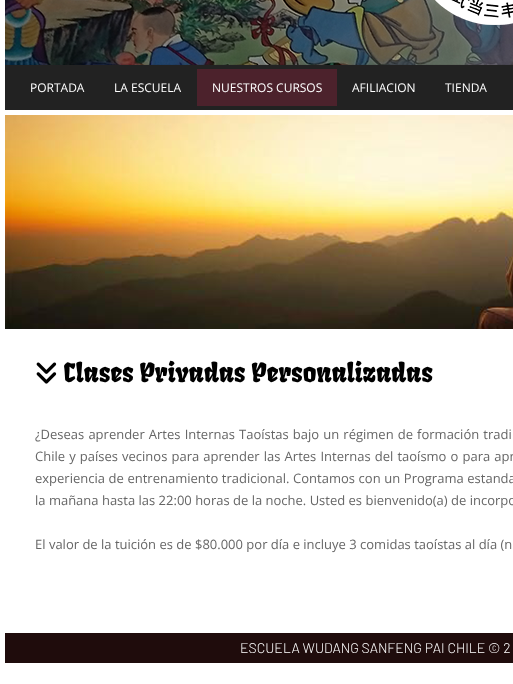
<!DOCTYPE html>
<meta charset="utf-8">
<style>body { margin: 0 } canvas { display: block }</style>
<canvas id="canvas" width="513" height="684"></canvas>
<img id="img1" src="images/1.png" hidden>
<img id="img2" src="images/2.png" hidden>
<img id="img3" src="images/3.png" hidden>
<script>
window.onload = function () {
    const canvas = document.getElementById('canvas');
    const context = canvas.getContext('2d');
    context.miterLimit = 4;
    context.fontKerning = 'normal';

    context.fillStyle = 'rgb(255, 255, 255)';
    context.fillRect(0, 0, 513, 684);
    context.drawImage(document.getElementById('img1'), 5, 0, 508, 65);
    context.fillStyle = 'rgb(34, 34, 34)';
    context.fillRect(5, 65, 508, 45);
    context.fillStyle = 'rgb(76, 34, 44)';
    context.fillRect(197, 69, 140, 37);
    context.drawImage(document.getElementById('img2'), 5, 115, 508, 214);
    context.drawImage(document.getElementById('img3'), 36, 362, 21, 22);
    context.fillStyle = 'rgb(31, 12, 12)';
    context.fillRect(5, 633, 508, 30);
    context.font = '12px Open Sans';
    context.fillStyle = 'rgb(255, 255, 255)';
    context.fillText('PORTADA', 30, 92);
    context.fillText('LA ESCUELA', 114, 92);
    context.fillText('NUESTROS CURSOS', 212, 92);
    context.fillText('AFILIACION', 352, 92);
    context.fillText('TIENDA', 445, 92);
    context.font = '26px Fruktur';
    context.fillStyle = 'rgb(0, 0, 0)';
    context.fillText('Clases Privadas Personalizadas', 63, 382);
    context.wordSpacing = '0.75px';
    context.font = '13px Open Sans';
    context.fillStyle = 'rgb(102, 102, 102)';
    context.fillText('¿Deseas aprender Artes Internas Taoístas bajo un régimen de formación tradi', 35, 439);
    context.fillText('Chile y países vecinos para aprender las Artes Internas del taoísmo o para apr', 35, 461);
    context.wordSpacing = '0.25px';
    context.fillText('experiencia de entrenamiento tradicional. Contamos con un Programa estanda', 35, 483);
    context.wordSpacing = '0px';
    context.fillText('la mañana hasta las 22:00 horas de la noche. Usted es bienvenido(a) de incorpo', 35, 505);
    context.fillText('El valor de la tuición es de $80.000 por día e incluye 3 comidas taoístas al día (n', 35, 549);
    context.font = '300 14px Barlow';
    context.fillStyle = 'rgb(255, 255, 255)';
    context.fillText('ESCUELA WUDANG SANFENG PAI CHILE © 2', 240, 653);
};
</script>
